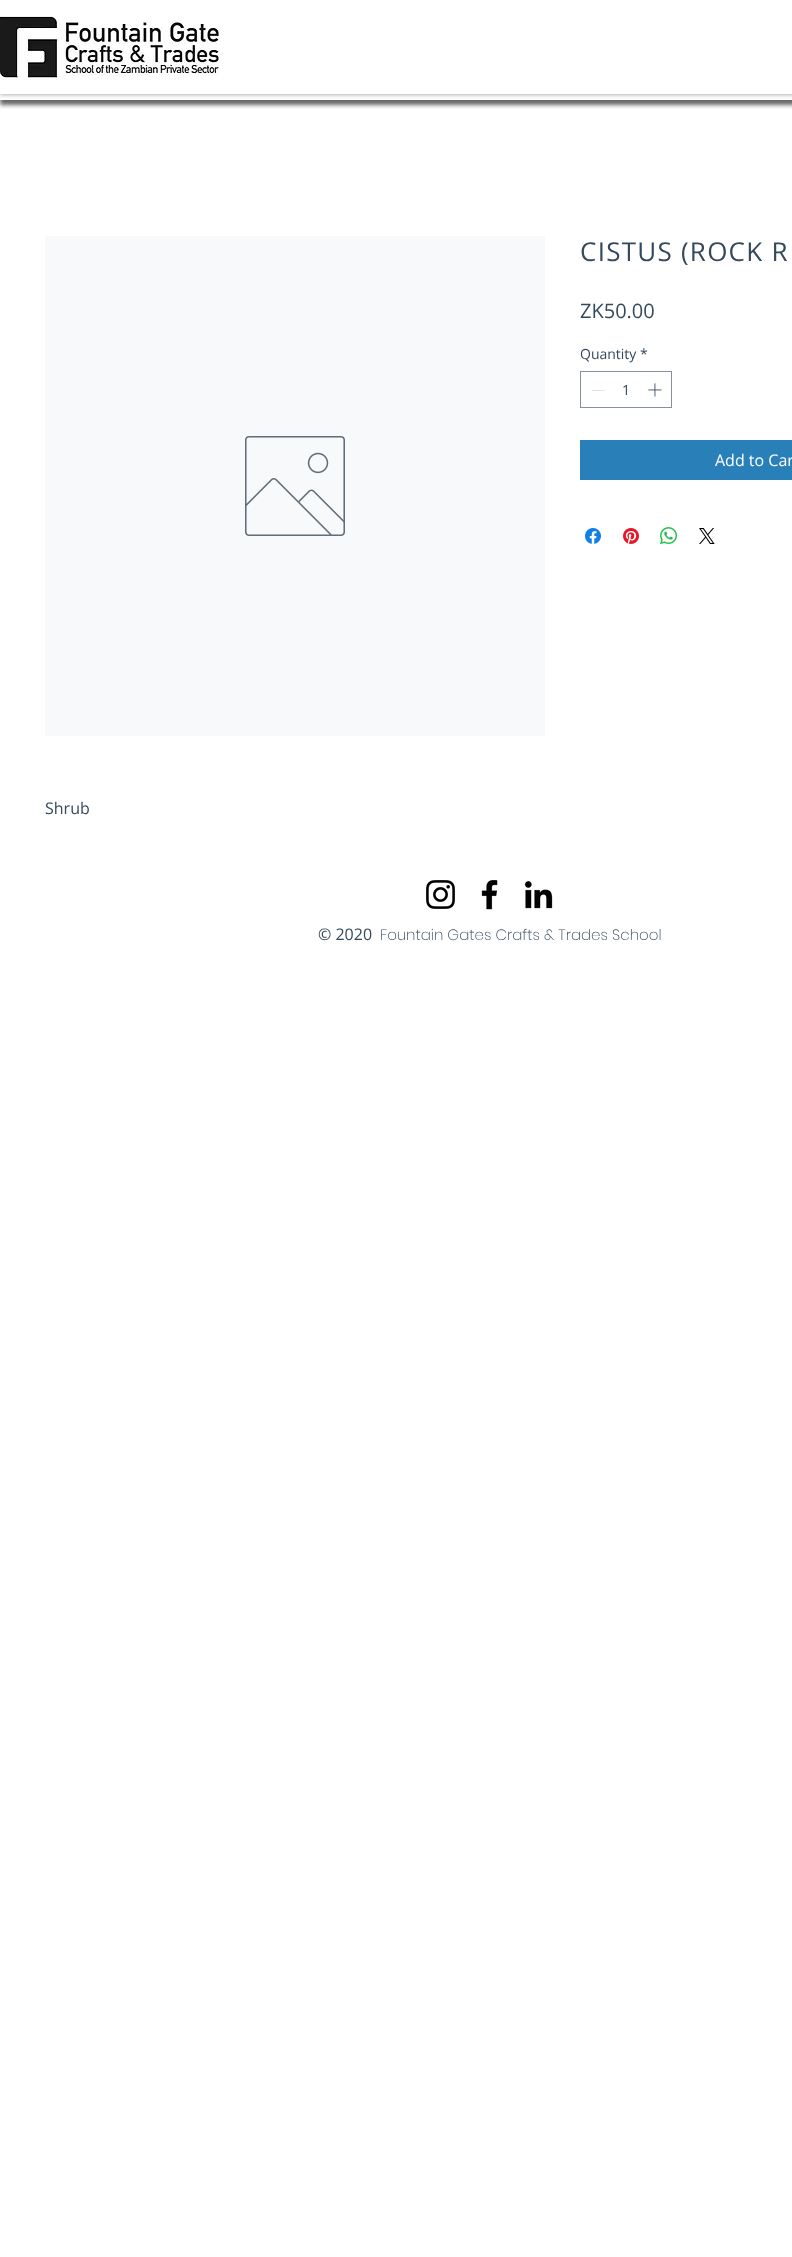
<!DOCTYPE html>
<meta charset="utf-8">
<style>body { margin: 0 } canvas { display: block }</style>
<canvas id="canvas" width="792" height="2257"></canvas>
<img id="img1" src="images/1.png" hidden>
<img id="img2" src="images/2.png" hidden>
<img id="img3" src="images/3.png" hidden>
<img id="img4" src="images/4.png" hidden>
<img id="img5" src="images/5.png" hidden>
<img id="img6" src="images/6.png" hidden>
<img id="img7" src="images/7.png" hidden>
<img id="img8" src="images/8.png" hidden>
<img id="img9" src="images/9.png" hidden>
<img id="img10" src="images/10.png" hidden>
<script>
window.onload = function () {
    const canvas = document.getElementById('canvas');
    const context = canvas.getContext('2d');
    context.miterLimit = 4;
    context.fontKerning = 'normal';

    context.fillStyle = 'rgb(255, 255, 255)';
    context.fillRect(0, 0, 792, 2257);
    context.save();
    context.beginPath();
    context.rect(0, 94, 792, 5);
    context.clip();
    context.fillStyle = 'rgba(0, 0, 0, 0.6)';
    context.filter = 'blur(2px)';
    context.beginPath();
    context.rect(0, 1, 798, 94);
    context.fill();
    context.filter = 'none';
    context.restore();
    context.save();
    context.beginPath();
    context.rect(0, 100, 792, 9);
    context.clip();
    context.fillStyle = 'rgba(0, 0, 0, 0.6)';
    context.filter = 'blur(2px)';
    context.beginPath();
    context.rect(0, 5, 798, 100);
    context.fill();
    context.filter = 'none';
    context.restore();
    context.fillStyle = 'rgba(255, 255, 255, 0.5)';
    context.fillRect(0, 94, 792, 5);
    context.drawImage(document.getElementById('img1'), 0, 16, 219, 64);
    context.strokeStyle = 'rgb(133, 146, 158)';
    context.strokeRect(580.5, 371.5, 91, 36);
    context.fillStyle = 'rgb(227, 227, 227)';
    context.fillRect(592, 390, 13, 1);
    context.drawImage(document.getElementById('img2'), 648, 383, 14, 14);
    context.fillStyle = 'rgb(41, 128, 185)';
    context.fillRect(580, 440, 212, 40);
    context.drawImage(document.getElementById('img3'), 585, 528, 16, 16);
    context.drawImage(document.getElementById('img4'), 623, 528, 16, 16);
    context.drawImage(document.getElementById('img5'), 660, 527, 17, 17);
    context.drawImage(document.getElementById('img6'), 699, 528, 16, 16);
    context.fillStyle = 'rgb(248, 249, 250)';
    context.fillRect(45, 236, 500, 500);
    context.drawImage(document.getElementById('img7'), 245, 436, 100, 100);
    context.drawImage(document.getElementById('img8'), 426, 880, 29, 29);
    context.drawImage(document.getElementById('img9'), 481, 880, 17, 30);
    context.drawImage(document.getElementById('img10'), 524, 881, 29, 28);
    context.letterSpacing = '1.25px';
    context.font = '26px Open Sans';
    context.fillStyle = 'rgb(52, 73, 94)';
    context.fillText('CISTUS (ROCK R', 580, 261);
    context.letterSpacing = '0px';
    context.font = '20px Open Sans';
    context.fillText('ZK50.00', 580, 318);
    context.font = '14px Open Sans';
    context.fillText('Quantity', 580, 359);
    context.fillText('*', 640, 359);
    context.fillText('1', 622, 395);
    context.font = '16px Open Sans';
    context.fillStyle = 'rgb(255, 255, 255)';
    context.fillText('Add to Car', 715, 466);
    context.fillStyle = 'rgb(52, 73, 94)';
    context.fillText('Shrub', 45, 814);
    context.fillText('© 2020', 318, 940);
    context.font = '200 15px Poppins';
    context.fillText('Fountain Gates Crafts & Trades School', 380, 940);
};
</script>
